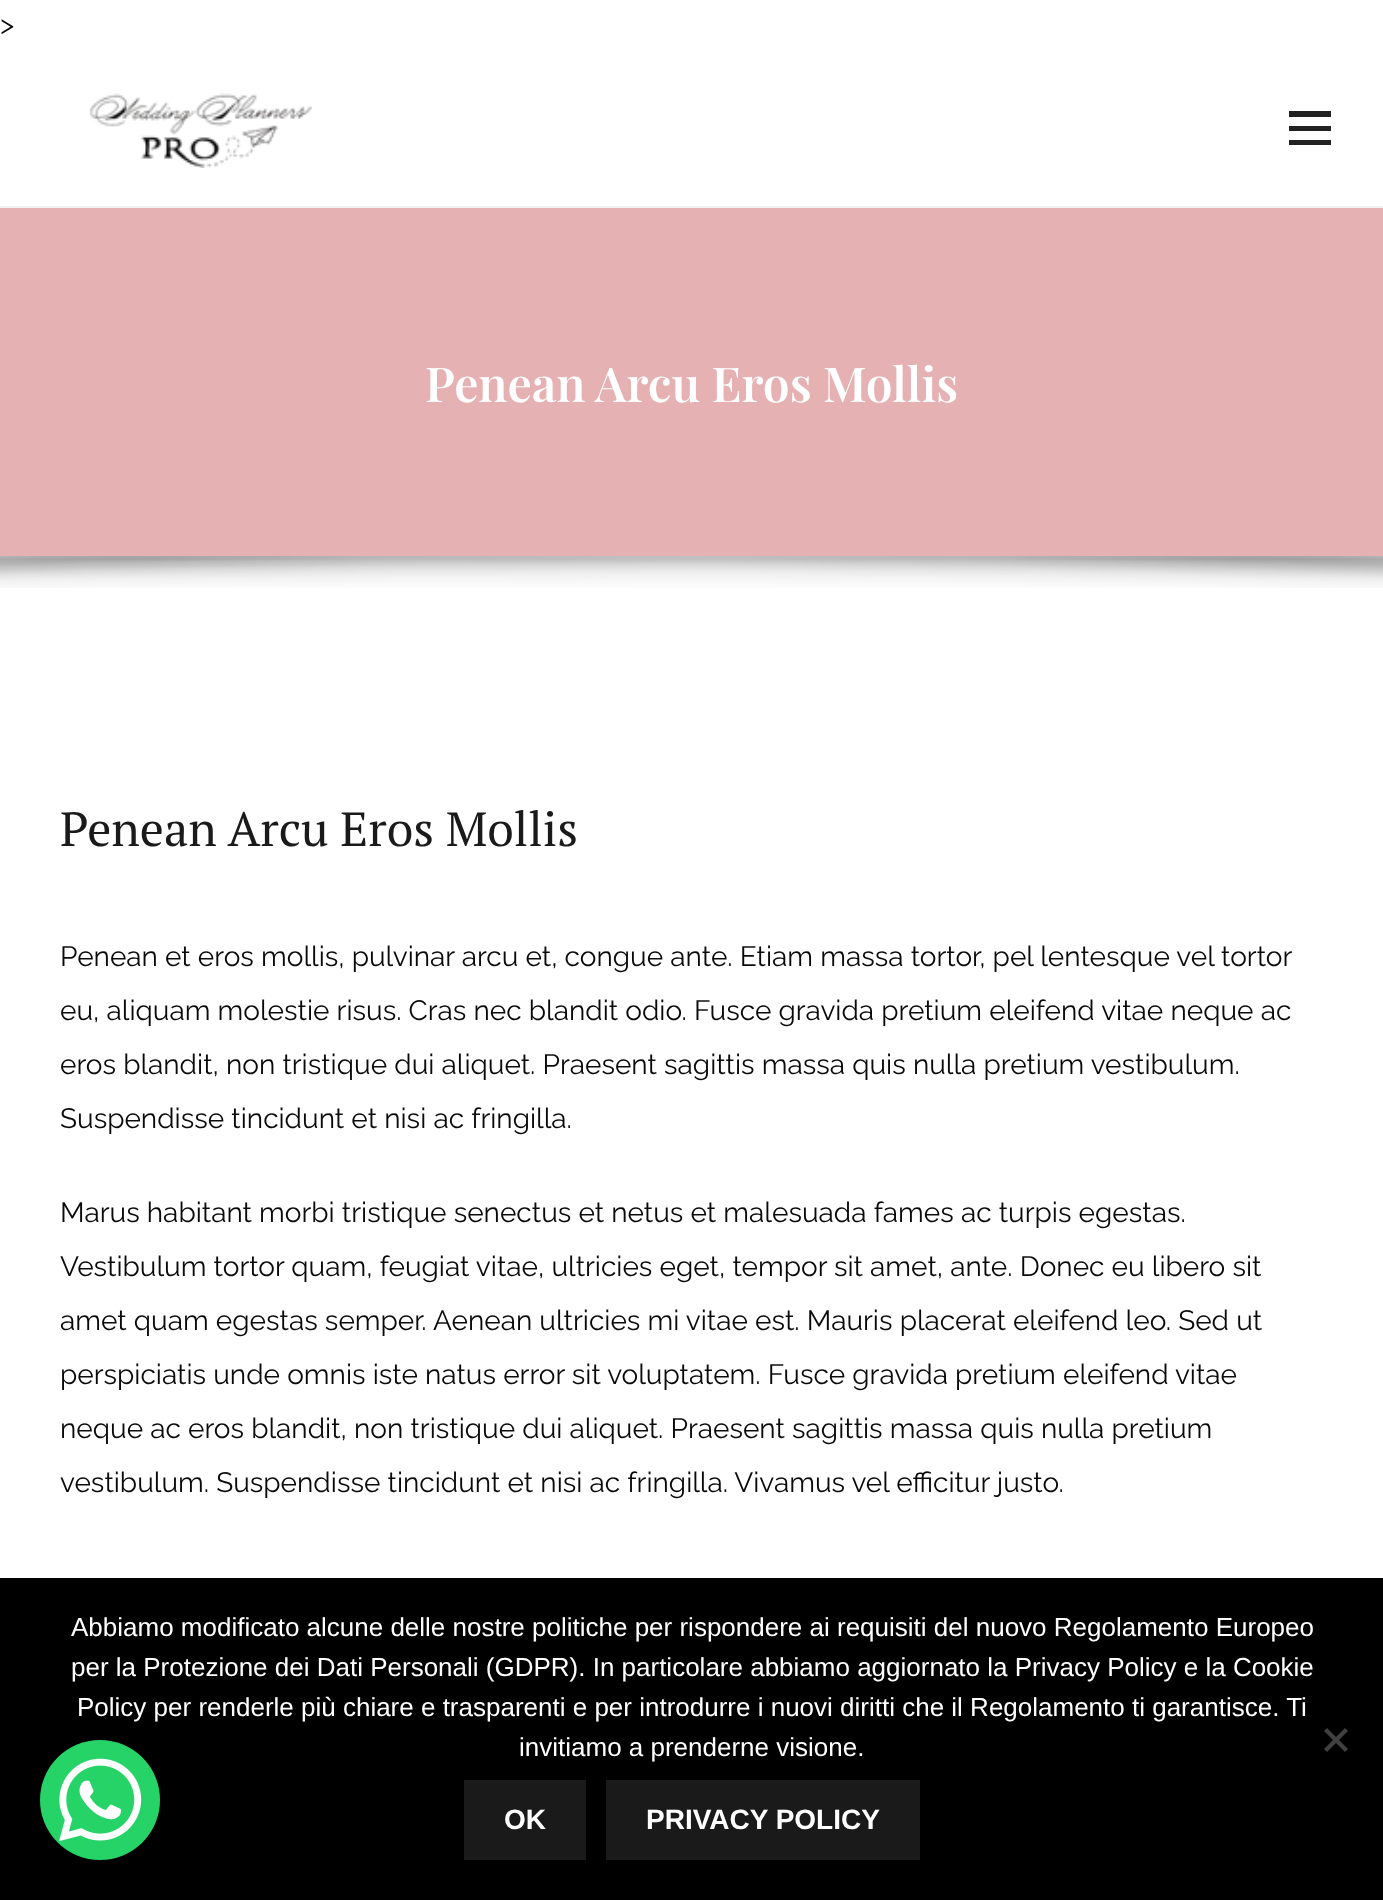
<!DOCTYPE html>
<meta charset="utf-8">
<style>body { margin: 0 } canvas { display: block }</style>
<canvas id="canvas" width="1383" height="1900"></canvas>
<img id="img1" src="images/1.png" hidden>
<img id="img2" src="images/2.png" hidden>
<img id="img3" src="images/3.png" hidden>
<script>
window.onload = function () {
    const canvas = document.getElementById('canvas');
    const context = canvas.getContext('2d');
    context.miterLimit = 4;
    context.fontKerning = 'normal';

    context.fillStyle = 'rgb(255, 255, 255)';
    context.fillRect(0, 0, 1383, 1900);
    context.fillStyle = 'rgb(241, 241, 241)';
    context.fillRect(0, 206, 1383, 2);
    context.drawImage(document.getElementById('img1'), 89, 93, 223, 75);
    context.fillStyle = 'rgb(34, 34, 34)';
    context.beginPath();
    context.moveTo(1331, 111);
    context.lineTo(1331, 117);
    context.lineTo(1289, 117);
    context.lineTo(1289, 111);
    context.closePath();
    context.moveTo(1289, 131);
    context.lineTo(1331, 131);
    context.lineTo(1331, 126);
    context.lineTo(1289, 126);
    context.closePath();
    context.moveTo(1289, 145);
    context.lineTo(1331, 145);
    context.lineTo(1331, 140);
    context.lineTo(1289, 140);
    context.closePath();
    context.fill();
    context.fillStyle = 'rgb(230, 177, 179)';
    context.fillRect(0, 208, 1383, 348);
    context.drawImage(document.getElementById('img2'), 0, 556, 1383, 32);
    context.fillStyle = 'rgb(0, 0, 0)';
    context.fillRect(0, 1578, 1383, 322);
    context.fillStyle = 'rgb(64, 64, 64)';
    context.beginPath();
    context.moveTo(1345, 1728);
    context.lineTo(1348, 1731);
    context.lineTo(1327, 1752);
    context.lineTo(1324, 1749);
    context.closePath();
    context.fill();
    context.beginPath();
    context.moveTo(1324, 1731);
    context.lineTo(1327, 1728);
    context.lineTo(1348, 1749);
    context.lineTo(1345, 1752);
    context.closePath();
    context.fill();
    context.fillStyle = 'rgb(26, 26, 26)';
    context.fillRect(464, 1780, 122, 80);
    context.fillRect(606, 1780, 314, 80);
    context.fillStyle = 'rgb(37, 211, 102)';
    context.beginPath();
    context.arc(100, 1800, 60, 0, 2 * Math.PI);
    context.fill();
    context.drawImage(document.getElementById('img3'), 59, 1758, 83, 84);
    context.font = '28px Raleway';
    context.fillStyle = 'rgb(10, 10, 10)';
    context.fillText('>', 0, 34);
    context.font = '600 48px Playfair Display';
    context.fillStyle = 'rgb(255, 255, 255)';
    context.fillText('Penean Arcu Eros Mollis', 425, 402);
    context.font = '48px PT Serif';
    context.fillStyle = 'rgb(26, 26, 26)';
    context.fillText('Penean Arcu Eros Mollis', 60, 846);
    context.font = '28px Raleway';
    context.fillStyle = 'rgb(10, 10, 10)';
    context.fillText('Penean et eros mollis, pulvinar arcu et, congue ante. Etiam massa tortor, pel lentesque vel tortor', 60, 966);
    context.fillText('eu, aliquam molestie risus. Cras nec blandit odio. Fusce gravida pretium eleifend vitae neque ac', 60, 1020);
    context.fillText('eros blandit, non tristique dui aliquet. Praesent sagittis massa quis nulla pretium vestibulum.', 60, 1074);
    context.fillText('Suspendisse tincidunt et nisi ac fringilla.', 60, 1128);
    context.fillText('Marus habitant morbi tristique senectus et netus et malesuada fames ac turpis egestas.', 60, 1222);
    context.fillText('Vestibulum tortor quam, feugiat vitae, ultricies eget, tempor sit amet, ante. Donec eu libero sit', 60, 1276);
    context.fillText('amet quam egestas semper. Aenean ultricies mi vitae est. Mauris placerat eleifend leo. Sed ut', 60, 1330);
    context.fillText('perspiciatis unde omnis iste natus error sit voluptatem. Fusce gravida pretium eleifend vitae', 60, 1384);
    context.fillText('neque ac eros blandit, non tristique dui aliquet. Praesent sagittis massa quis nulla pretium', 60, 1438);
    context.fillText('vestibulum. Suspendisse tincidunt et nisi ac fringilla. Vivamus vel efficitur justo.', 60, 1492);
    context.font = '26px Liberation Sans';
    context.fillStyle = 'rgb(255, 255, 255)';
    context.fillText('Abbiamo modificato alcune delle nostre politiche per rispondere ai requisiti del nuovo Regolamento Europeo', 71, 1636);
    context.fillText('per la Protezione dei Dati Personali (GDPR). In particolare abbiamo aggiornato la Privacy Policy e la Cookie', 71, 1676);
    context.fillText('Policy per renderle più chiare e trasparenti e per introdurre i nuovi diritti che il Regolamento ti garantisce. Ti', 77, 1716);
    context.fillText('invitiamo a prenderne visione.', 519, 1756);
    context.font = 'bold 28px Liberation Sans';
    context.fillText('OK', 504, 1829);
    context.fillText('PRIVACY POLICY', 646, 1829);
};
</script>
